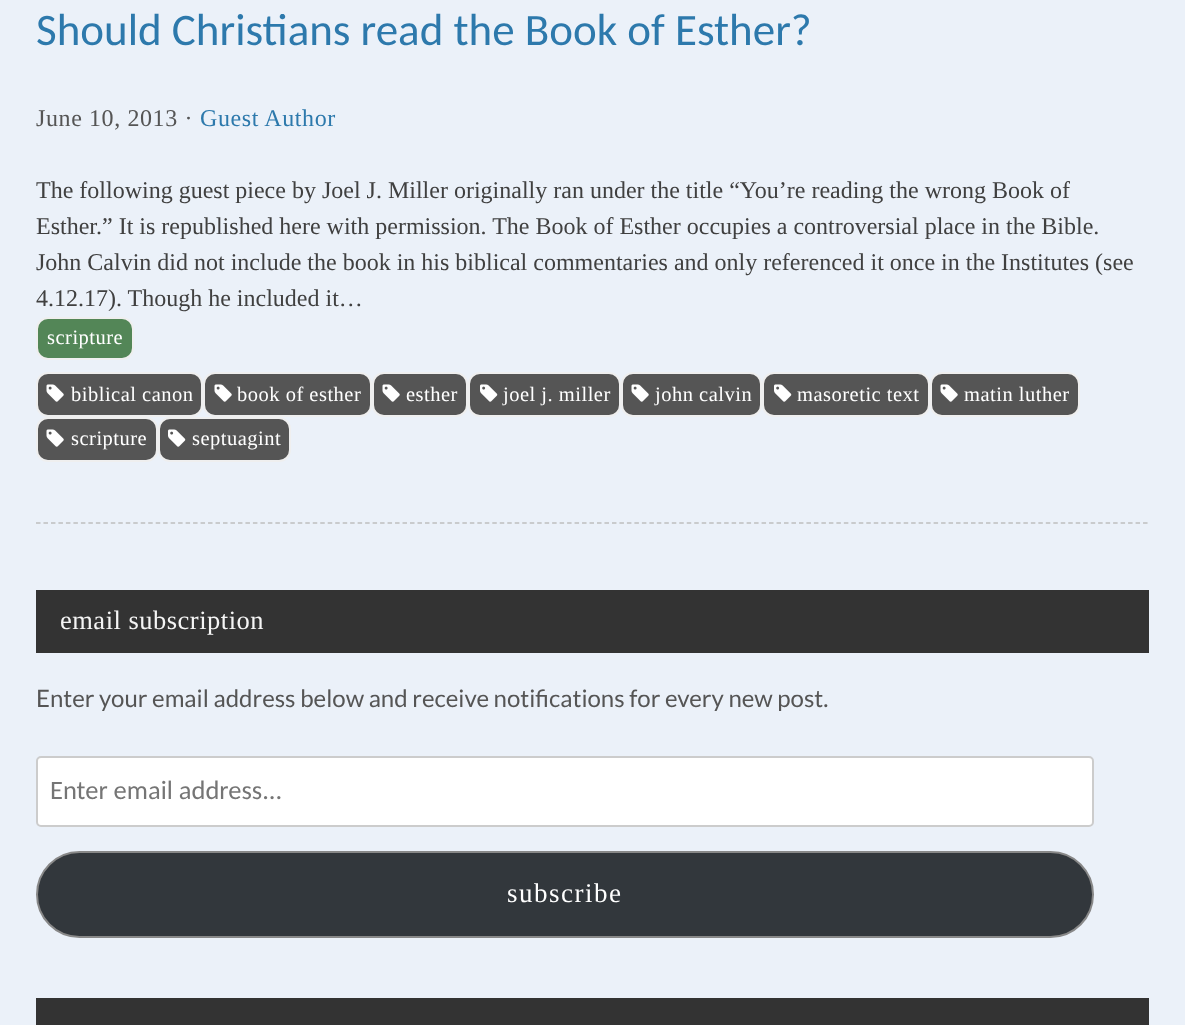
<!DOCTYPE html>
<meta charset="utf-8">
<style>body { margin: 0 } canvas { display: block }</style>
<canvas id="canvas" width="1185" height="1025"></canvas>
<img id="img1" src="images/1.png" hidden>
<img id="img2" src="images/2.png" hidden>
<script>
window.onload = function () {
    const canvas = document.getElementById('canvas');
    const context = canvas.getContext('2d');
    context.miterLimit = 4;
    context.fontKerning = 'normal';

    context.fillStyle = 'rgb(235, 241, 249)';
    context.fillRect(0, 0, 1185, 1025);
    context.beginPath();
    context.moveTo(36, 523);
    context.lineTo(1149, 523);
    context.strokeStyle = 'rgb(190, 190, 190)';
    context.lineWidth = 1.5;
    context.setLineDash([4.5, 2.98]);
    context.stroke();
    context.fillStyle = 'rgb(83, 134, 87)';
    context.beginPath();
    context.roundRect(37, 318, 96, 41, 11);
    context.fill();
    context.strokeStyle = 'rgb(239, 239, 239)';
    context.lineWidth = 2;
    context.setLineDash([]);
    context.stroke();
    context.fillStyle = 'rgb(85, 85, 85)';
    context.beginPath();
    context.roundRect(37, 373, 165, 43, 11);
    context.fill();
    context.stroke();
    context.drawImage(document.getElementById('img1'), 46, 384, 18, 18);
    context.beginPath();
    context.roundRect(204, 373, 167, 43, 11);
    context.fill();
    context.stroke();
    context.drawImage(document.getElementById('img1'), 214, 384, 18, 18);
    context.beginPath();
    context.roundRect(373, 373, 94, 43, 11);
    context.fill();
    context.stroke();
    context.drawImage(document.getElementById('img1'), 382, 384, 18, 18);
    context.beginPath();
    context.roundRect(469, 373, 151, 43, 11);
    context.fill();
    context.stroke();
    context.drawImage(document.getElementById('img2'), 480, 384, 18, 18);
    context.beginPath();
    context.roundRect(622, 373, 139, 43, 11);
    context.fill();
    context.stroke();
    context.drawImage(document.getElementById('img1'), 631, 384, 18, 18);
    context.beginPath();
    context.roundRect(763, 373, 166, 43, 11);
    context.fill();
    context.stroke();
    context.drawImage(document.getElementById('img2'), 774, 384, 18, 18);
    context.beginPath();
    context.roundRect(931, 373, 148, 43, 11);
    context.fill();
    context.stroke();
    context.drawImage(document.getElementById('img1'), 940, 384, 18, 18);
    context.beginPath();
    context.roundRect(37, 418, 120, 43, 11);
    context.fill();
    context.stroke();
    context.drawImage(document.getElementById('img1'), 46, 429, 18, 18);
    context.beginPath();
    context.roundRect(159, 418, 131, 43, 11);
    context.fill();
    context.stroke();
    context.drawImage(document.getElementById('img2'), 168, 429, 18, 18);
    context.fillStyle = 'rgb(51, 51, 51)';
    context.fillRect(36, 590, 1113, 63);
    context.fillStyle = 'rgb(255, 255, 255)';
    context.beginPath();
    context.roundRect(37, 757, 1056, 69, 4);
    context.fill();
    context.strokeStyle = 'rgb(204, 204, 204)';
    context.stroke();
    context.fillStyle = 'rgb(50, 55, 60)';
    context.beginPath();
    context.roundRect(37, 852, 1056, 85, 42.5);
    context.fill();
    context.strokeStyle = 'rgb(136, 136, 136)';
    context.stroke();
    context.fillStyle = 'rgb(51, 51, 51)';
    context.fillRect(36, 998, 1113, 27);
    context.font = '45px Carlito';
    context.fillStyle = 'rgb(45, 121, 172)';
    context.fillText('Should Christians read the Book of Esther?', 36, 45);
    context.letterSpacing = '0.6px';
    context.font = '24px Liberation Serif';
    context.fillStyle = 'rgb(85, 85, 85)';
    context.fillText('June 10, 2013 ·', 36, 126);
    context.fillStyle = 'rgb(45, 121, 172)';
    context.fillText('Guest Author', 200, 126);
    context.letterSpacing = '0px';
    context.fillStyle = 'rgb(64, 64, 64)';
    context.fillText('The following guest piece by Joel J. Miller originally ran under the title “You’re reading the wrong Book of', 36, 198);
    context.fillText('Esther.” It is republished here with permission. The Book of Esther occupies a controversial place in the Bible.', 36, 234);
    context.fillText('John Calvin did not include the book in his biblical commentaries and only referenced it once in the Institutes (see', 36, 270);
    context.fillText('4.12.17). Though he included it…', 36, 306);
    context.letterSpacing = '0.5px';
    context.font = '20.5px Liberation Serif';
    context.fillStyle = 'rgb(255, 255, 255)';
    context.fillText('scripture', 47, 344);
    context.fillText('biblical canon', 71, 401);
    context.fillText('book of esther', 237, 401);
    context.fillText('esther', 406, 401);
    context.fillText('joel j. miller', 503, 401);
    context.fillText('john calvin', 655, 401);
    context.fillText('masoretic text', 797, 401);
    context.fillText('matin luther', 964, 401);
    context.fillText('scripture', 71, 445);
    context.fillText('septuagint', 192, 445);
    context.font = '26.5px Liberation Serif';
    context.fillStyle = 'rgb(245, 245, 245)';
    context.fillText('email subscription', 60, 629);
    context.letterSpacing = '0px';
    context.font = '24px Lato';
    context.fillStyle = 'rgb(85, 85, 85)';
    context.fillText('Enter your email address below and receive notifications for every new post.', 36, 707);
    context.font = '26.5px Carlito';
    context.fillStyle = 'rgb(117, 117, 117)';
    context.fillText('Enter email address...', 50, 799);
    context.letterSpacing = '1.5px';
    context.font = '27px Liberation Serif';
    context.fillStyle = 'rgb(255, 255, 255)';
    context.fillText('subscribe', 507, 902);
};
</script>
